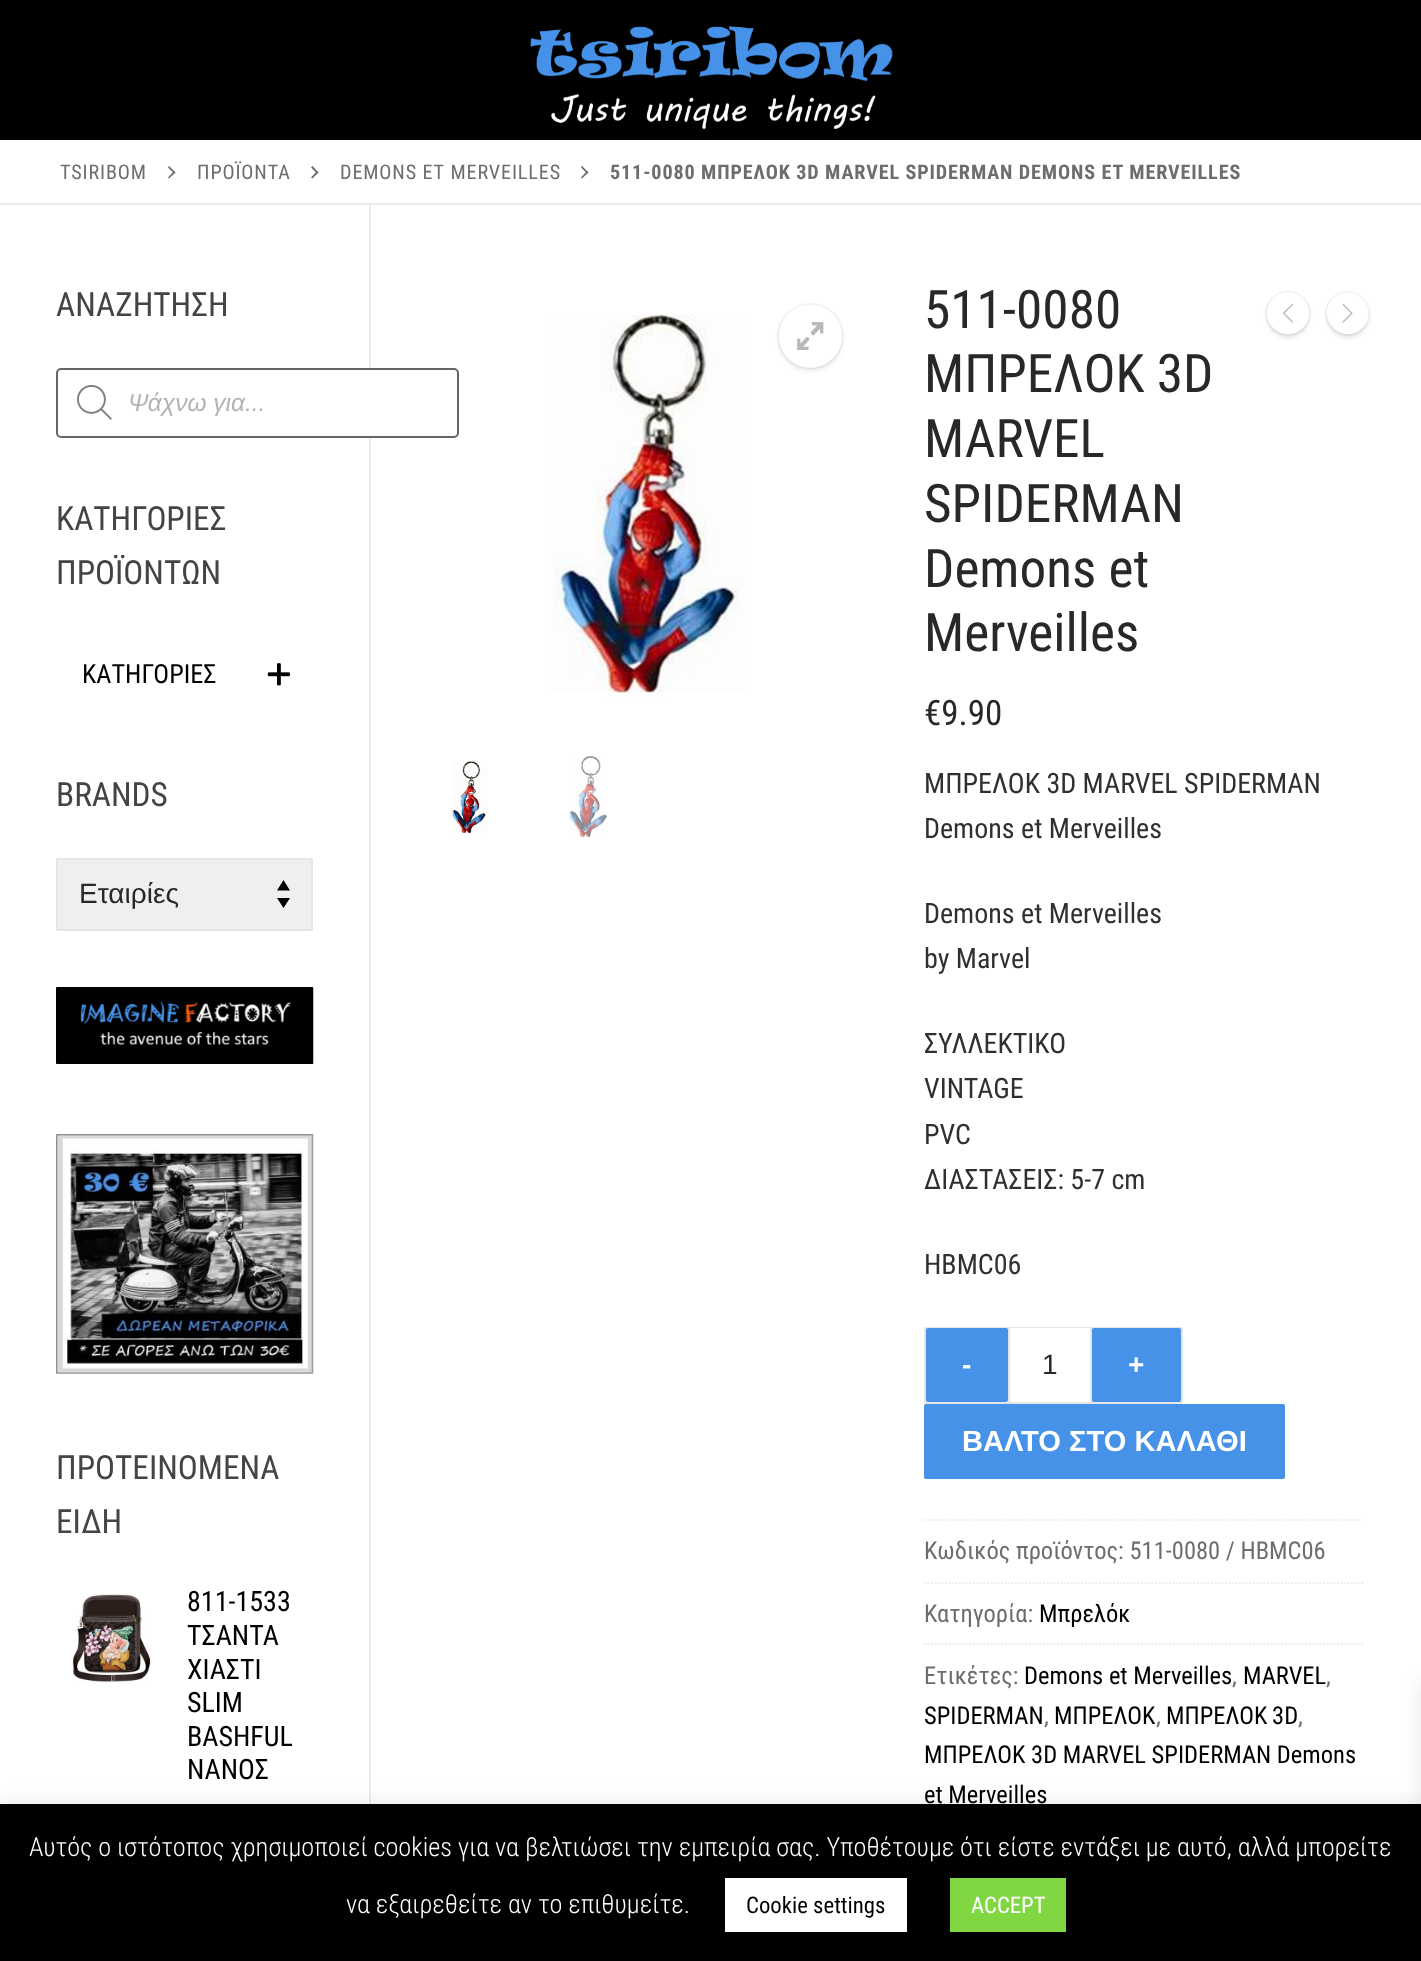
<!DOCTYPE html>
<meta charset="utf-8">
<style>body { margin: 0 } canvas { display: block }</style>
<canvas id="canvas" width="1421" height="1961"></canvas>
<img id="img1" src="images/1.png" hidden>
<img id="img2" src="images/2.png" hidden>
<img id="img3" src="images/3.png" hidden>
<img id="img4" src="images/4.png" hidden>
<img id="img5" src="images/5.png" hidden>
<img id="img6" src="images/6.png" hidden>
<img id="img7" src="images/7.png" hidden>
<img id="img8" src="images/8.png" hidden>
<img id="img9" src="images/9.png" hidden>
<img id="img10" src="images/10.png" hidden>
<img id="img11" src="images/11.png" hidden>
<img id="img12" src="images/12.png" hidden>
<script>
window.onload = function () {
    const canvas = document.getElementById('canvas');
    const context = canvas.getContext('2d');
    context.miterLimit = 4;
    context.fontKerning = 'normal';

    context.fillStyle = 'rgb(255, 255, 255)';
    context.fillRect(0, 0, 1421, 1961);
    context.fillStyle = 'rgb(0, 0, 0)';
    context.fillRect(0, 0, 1421, 140);
    context.drawImage(document.getElementById('img1'), 530, 26, 363, 103);
    context.fillStyle = 'rgb(234, 236, 238)';
    context.fillRect(0, 203, 1421, 2);
    context.fillStyle = 'rgb(109, 109, 109)';
    context.beginPath();
    context.moveTo(175.5, 172.5);
    context.lineTo(169, 178.5);
    context.lineTo(168, 177.5);
    context.lineTo(174, 171);
    context.closePath();
    context.fill();
    context.beginPath();
    context.moveTo(175.5, 172.5);
    context.lineTo(174, 173.5);
    context.lineTo(168, 167.5);
    context.lineTo(169, 166);
    context.closePath();
    context.fill();
    context.beginPath();
    context.moveTo(318.5, 172.5);
    context.lineTo(312.5, 178.5);
    context.lineTo(311, 177.5);
    context.lineTo(317, 171);
    context.closePath();
    context.fill();
    context.beginPath();
    context.moveTo(318.5, 172.5);
    context.lineTo(317, 173.5);
    context.lineTo(311, 167.5);
    context.lineTo(312.5, 166);
    context.closePath();
    context.fill();
    context.beginPath();
    context.moveTo(588.5, 172.5);
    context.lineTo(582, 178.5);
    context.lineTo(581, 177.5);
    context.lineTo(587, 171);
    context.closePath();
    context.fill();
    context.beginPath();
    context.moveTo(588.5, 172.5);
    context.lineTo(587, 173.5);
    context.lineTo(581, 167.5);
    context.lineTo(582, 166);
    context.closePath();
    context.fill();
    context.fillStyle = 'rgb(234, 236, 238)';
    context.fillRect(369, 205, 2, 1599);
    context.fillStyle = 'rgb(255, 255, 255)';
    context.beginPath();
    context.roundRect(57, 369, 401, 68, 4);
    context.fill();
    context.strokeStyle = 'rgb(102, 102, 102)';
    context.lineWidth = 2;
    context.stroke();
    context.drawImage(document.getElementById('img2'), 77, 385, 35, 35);
    context.drawImage(document.getElementById('img3'), 267, 663, 24, 23);
    context.fillStyle = 'rgb(239, 239, 239)';
    context.beginPath();
    context.roundRect(56, 858, 257, 73, 2);
    context.fill();
    context.fillStyle = 'rgb(0, 0, 0)';
    context.beginPath();
    context.moveTo(283.5, 880);
    context.lineTo(277, 890.5);
    context.lineTo(290, 890.5);
    context.closePath();
    context.moveTo(283.5, 908);
    context.lineTo(290, 898);
    context.lineTo(277, 898);
    context.closePath();
    context.fill();
    context.beginPath();
    context.roundRect(57, 859, 255, 71, 1);
    context.strokeStyle = 'rgb(229, 229, 229)';
    context.stroke();
    context.drawImage(document.getElementById('img4'), 56, 987, 258, 77);
    context.drawImage(document.getElementById('img5'), 56, 1134, 258, 240);
    context.drawImage(document.getElementById('img6'), 72, 1594, 79, 89);
    context.drawImage(document.getElementById('img7'), 551, 314, 199, 383);
    context.beginPath();
    context.roundRect(778, 304, 65, 64, 32);
    context.strokeStyle = 'rgb(243, 243, 243)';
    context.stroke();
    context.save();
    context.beginPath();
    context.moveTo(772, 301);
    context.lineTo(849, 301);
    context.lineTo(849, 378);
    context.lineTo(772, 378);
    context.closePath();
    context.moveTo(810.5, 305);
    context.bezierCurveTo(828, 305, 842, 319, 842, 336.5);
    context.bezierCurveTo(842, 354, 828, 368, 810.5, 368);
    context.bezierCurveTo(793, 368, 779, 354, 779, 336.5);
    context.bezierCurveTo(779, 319, 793, 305, 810.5, 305);
    context.closePath();
    context.clip('evenodd');
    context.fillStyle = 'rgba(102, 102, 102, 0.16)';
    context.filter = 'blur(2px)';
    context.beginPath();
    context.roundRect(779, 308, 63, 63, 31.5);
    context.fill();
    context.filter = 'none';
    context.restore();
    context.fillStyle = 'rgba(255, 255, 255, 0.5)';
    context.beginPath();
    context.arc(810.5, 336.5, 31.5, 0, 2 * Math.PI);
    context.fill();
    context.drawImage(document.getElementById('img8'), 797, 322, 27, 28);
    context.drawImage(document.getElementById('img9'), 451, 761, 37, 73);
    context.drawImage(document.getElementById('img10'), 568, 756, 40, 81);
    context.beginPath();
    context.roundRect(1266, 292, 44, 43, 21.5);
    context.stroke();
    context.save();
    context.beginPath();
    context.moveTo(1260, 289);
    context.lineTo(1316, 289);
    context.lineTo(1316, 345);
    context.lineTo(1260, 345);
    context.closePath();
    context.moveTo(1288, 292);
    context.bezierCurveTo(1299.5, 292, 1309, 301.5, 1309, 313);
    context.bezierCurveTo(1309, 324.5, 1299.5, 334, 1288, 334);
    context.bezierCurveTo(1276.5, 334, 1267, 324.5, 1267, 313);
    context.bezierCurveTo(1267, 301.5, 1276.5, 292, 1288, 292);
    context.closePath();
    context.clip('evenodd');
    context.fillStyle = 'rgba(102, 102, 102, 0.16)';
    context.filter = 'blur(2px)';
    context.beginPath();
    context.roundRect(1267, 296, 42, 42, 21);
    context.fill();
    context.filter = 'none';
    context.restore();
    context.beginPath();
    context.arc(1288, 313, 21, 0, 2 * Math.PI);
    context.fill();
    context.drawImage(document.getElementById('img11'), 1283, 303, 10, 20);
    context.beginPath();
    context.arc(1347.5, 313.5, 21.5, 0, 2 * Math.PI);
    context.stroke();
    context.save();
    context.beginPath();
    context.moveTo(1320, 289);
    context.lineTo(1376, 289);
    context.lineTo(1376, 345);
    context.lineTo(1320, 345);
    context.closePath();
    context.moveTo(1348, 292);
    context.bezierCurveTo(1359.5, 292, 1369, 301.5, 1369, 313);
    context.bezierCurveTo(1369, 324.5, 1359.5, 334, 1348, 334);
    context.bezierCurveTo(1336.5, 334, 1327, 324.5, 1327, 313);
    context.bezierCurveTo(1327, 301.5, 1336.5, 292, 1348, 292);
    context.closePath();
    context.clip('evenodd');
    context.fillStyle = 'rgba(102, 102, 102, 0.16)';
    context.filter = 'blur(2px)';
    context.beginPath();
    context.roundRect(1327, 296, 42, 42, 21);
    context.fill();
    context.filter = 'none';
    context.restore();
    context.beginPath();
    context.arc(1348, 313, 21, 0, 2 * Math.PI);
    context.fill();
    context.drawImage(document.getElementById('img12'), 1342, 303, 11, 20);
    context.fillStyle = 'rgb(242, 242, 242)';
    context.beginPath();
    context.roundRect(925, 1328, 257, 75, 1);
    context.fill();
    context.strokeStyle = 'rgb(229, 229, 229)';
    context.stroke();
    context.fillStyle = 'rgb(69, 146, 232)';
    context.beginPath();
    context.roundRect(926, 1328, 82, 74, 2);
    context.fill();
    context.fillStyle = 'rgb(255, 255, 255)';
    context.fillRect(1010, 1328, 80, 74);
    context.fillStyle = 'rgb(229, 229, 229)';
    context.fillRect(1090, 1328, 2, 74);
    context.fillRect(1008, 1328, 2, 74);
    context.fillStyle = 'rgb(69, 146, 232)';
    context.beginPath();
    context.roundRect(1092, 1328, 89, 74, 2);
    context.fill();
    context.beginPath();
    context.roundRect(924, 1404, 361, 75, 2);
    context.fill();
    context.beginPath();
    context.moveTo(924, 1520);
    context.lineTo(1365, 1520);
    context.strokeStyle = 'rgb(234, 236, 238)';
    context.lineWidth = 1.8;
    context.setLineDash([1.75, 1.75]);
    context.stroke();
    context.beginPath();
    context.moveTo(924, 1583);
    context.lineTo(1365, 1583);
    context.stroke();
    context.beginPath();
    context.moveTo(924, 1644);
    context.lineTo(1365, 1644);
    context.stroke();
    context.fillStyle = 'rgba(172, 171, 171, 0.3)';
    context.filter = 'blur(9px)';
    context.beginPath();
    context.rect(0, 1803, 1421, 157);
    context.fill();
    context.filter = 'none';
    context.fillStyle = 'rgb(0, 0, 0)';
    context.fillRect(0, 1804, 1421, 157);
    context.fillStyle = 'rgba(0, 0, 0, 0.1)';
    context.filter = 'blur(9px)';
    context.beginPath();
    context.rect(1421, 1684, 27, 269);
    context.fill();
    context.filter = 'none';
    context.fillStyle = 'rgb(255, 255, 255)';
    context.fillRect(725, 1878, 182, 54);
    context.fillStyle = 'rgb(129, 215, 66)';
    context.fillRect(950, 1878, 116, 54);
    context.letterSpacing = '0.88px';
    context.font = '20.15px Roboto Condensed';
    context.fillStyle = 'rgb(109, 109, 109)';
    context.fillText('TSIRIBOM', 60, 179);
    context.fillText('ΠΡΟΪΟΝΤΑ', 197, 179);
    context.fillText('DEMONS ET MERVEILLES', 340, 179);
    context.font = 'bold 20.15px Roboto Condensed';
    context.fillText('511-0080 ΜΠΡΕΛΟΚ 3D MARVEL SPIDERMAN DEMONS ET MERVEILLES', 610, 179);
    context.letterSpacing = '0px';
    context.font = '33.25px Roboto Condensed';
    context.fillStyle = 'rgb(68, 68, 68)';
    context.fillText('ΑΝΑΖΗΤΗΣΗ', 56, 316);
    context.font = 'italic 24.5px Liberation Sans';
    context.fillStyle = 'rgb(179, 179, 179)';
    context.fillText('Ψάχνω για...', 128, 411);
    context.font = '33.25px Roboto Condensed';
    context.fillStyle = 'rgb(68, 68, 68)';
    context.fillText('ΚΑΤΗΓΟΡΙΕΣ', 56, 530);
    context.fillText('ΠΡΟΪΟΝΤΩΝ', 56, 584);
    context.font = '26.25px Roboto Condensed';
    context.fillStyle = 'rgb(0, 0, 0)';
    context.fillText('ΚΑΤΗΓΟΡΙΕΣ', 82, 683);
    context.font = '33.25px Roboto Condensed';
    context.fillStyle = 'rgb(68, 68, 68)';
    context.fillText('BRANDS', 56, 806);
    context.font = '28px Liberation Sans';
    context.fillStyle = 'rgb(40, 40, 40)';
    context.fillText('Εταιρίες', 79, 903);
    context.font = '33.25px Roboto Condensed';
    context.fillStyle = 'rgb(68, 68, 68)';
    context.fillText('ΠΡΟΤΕΙΝΟΜΕΝΑ', 56, 1479);
    context.fillText('ΕΙΔΗ', 56, 1533);
    context.font = '28px Roboto Condensed';
    context.fillStyle = 'rgb(0, 0, 0)';
    context.fillText('811-1533', 187, 1611);
    context.fillText('ΤΣΑΝΤΑ', 187, 1645);
    context.fillText('ΧΙΑΣΤΙ', 187, 1679);
    context.fillText('SLIM', 187, 1712);
    context.fillText('BASHFUL', 187, 1746);
    context.fillText('ΝΑΝΟΣ', 187, 1779);
    context.font = '53.25px Roboto Condensed';
    context.fillStyle = 'rgb(40, 40, 40)';
    context.fillText('511-0080', 924, 328);
    context.fillText('ΜΠΡΕΛΟΚ 3D', 924, 392);
    context.fillText('MARVEL', 924, 457);
    context.fillText('SPIDERMAN', 924, 522);
    context.fillText('Demons et', 924, 587);
    context.fillText('Merveilles', 924, 651);
    context.font = '35px Roboto Condensed';
    context.fillText('€9.90', 924, 725);
    context.font = '28px Roboto Condensed';
    context.fillStyle = 'rgb(48, 48, 48)';
    context.fillText('ΜΠΡΕΛΟΚ 3D MARVEL SPIDERMAN', 924, 793);
    context.fillText('Demons et Merveilles', 924, 838);
    context.fillText('Demons et Merveilles', 924, 923);
    context.fillText('by Marvel', 924, 968);
    context.fillText('ΣΥΛΛΕΚΤΙΚΟ', 924, 1053);
    context.fillText('VINTAGE', 924, 1098);
    context.fillText('PVC', 924, 1144);
    context.fillText('ΔΙΑΣΤΑΣΕΙΣ: 5-7 cm', 924, 1189);
    context.fillText('HBMC06', 924, 1274);
    context.font = 'bold 28px Liberation Sans';
    context.fillStyle = 'rgb(255, 255, 255)';
    context.fillText('-', 962, 1374);
    context.font = '28px Liberation Sans';
    context.fillStyle = 'rgb(40, 40, 40)';
    context.fillText('1', 1042, 1374);
    context.font = 'bold 28px Liberation Sans';
    context.fillStyle = 'rgb(255, 255, 255)';
    context.fillText('+', 1128, 1374);
    context.font = 'bold 29.1px Liberation Sans';
    context.fillText('ΒΑΛΤΟ ΣΤΟ ΚΑΛΑΘΙ', 962, 1451);
    context.font = '24.5px Roboto Condensed';
    context.fillStyle = 'rgb(109, 109, 109)';
    context.fillText('Κωδικός προϊόντος: 511-0080 / HBMC06', 924, 1559);
    context.fillText('Κατηγορία:', 924, 1622);
    context.fillStyle = 'rgb(0, 0, 0)';
    context.fillText('Μπρελόκ', 1039, 1622);
    context.fillStyle = 'rgb(109, 109, 109)';
    context.fillText('Ετικέτες:', 924, 1684);
    context.fillStyle = 'rgb(0, 0, 0)';
    context.fillText('Demons et Merveilles', 1024, 1684);
    context.fillStyle = 'rgb(109, 109, 109)';
    context.fillText(',', 1232, 1684);
    context.fillStyle = 'rgb(0, 0, 0)';
    context.fillText('MARVEL', 1243, 1684);
    context.fillStyle = 'rgb(109, 109, 109)';
    context.fillText(',', 1326, 1684);
    context.fillStyle = 'rgb(0, 0, 0)';
    context.fillText('SPIDERMAN', 924, 1724);
    context.fillStyle = 'rgb(109, 109, 109)';
    context.fillText(',', 1044, 1724);
    context.fillStyle = 'rgb(0, 0, 0)';
    context.fillText('ΜΠΡΕΛΟΚ', 1054, 1724);
    context.fillStyle = 'rgb(109, 109, 109)';
    context.fillText(',', 1156, 1724);
    context.wordSpacing = '-1px';
    context.fillStyle = 'rgb(0, 0, 0)';
    context.fillText('ΜΠΡΕΛΟΚ 3D', 1166, 1724);
    context.wordSpacing = '0px';
    context.fillStyle = 'rgb(109, 109, 109)';
    context.fillText(',', 1298, 1724);
    context.fillStyle = 'rgb(0, 0, 0)';
    context.fillText('ΜΠΡΕΛΟΚ 3D MARVEL SPIDERMAN Demons', 924, 1763);
    context.fillText('et Merveilles', 924, 1803);
    context.font = '300 26.25px Roboto Condensed';
    context.fillStyle = 'rgb(255, 255, 255)';
    context.fillText('Αυτός ο ιστότοπος χρησιμοποιεί cookies για να βελτιώσει την εμπειρία σας. Υποθέτουμε ότι είστε εντάξει με αυτό, αλλά μπορείτε', 29, 1856);
    context.fillText('να εξαιρεθείτε αν το επιθυμείτε.', 346, 1913);
    context.font = '22.75px Roboto Condensed';
    context.fillStyle = 'rgb(0, 0, 0)';
    context.fillText('Cookie settings', 746, 1913);
    context.fillStyle = 'rgb(255, 255, 255)';
    context.fillText('ACCEPT', 971, 1913);
};
</script>
